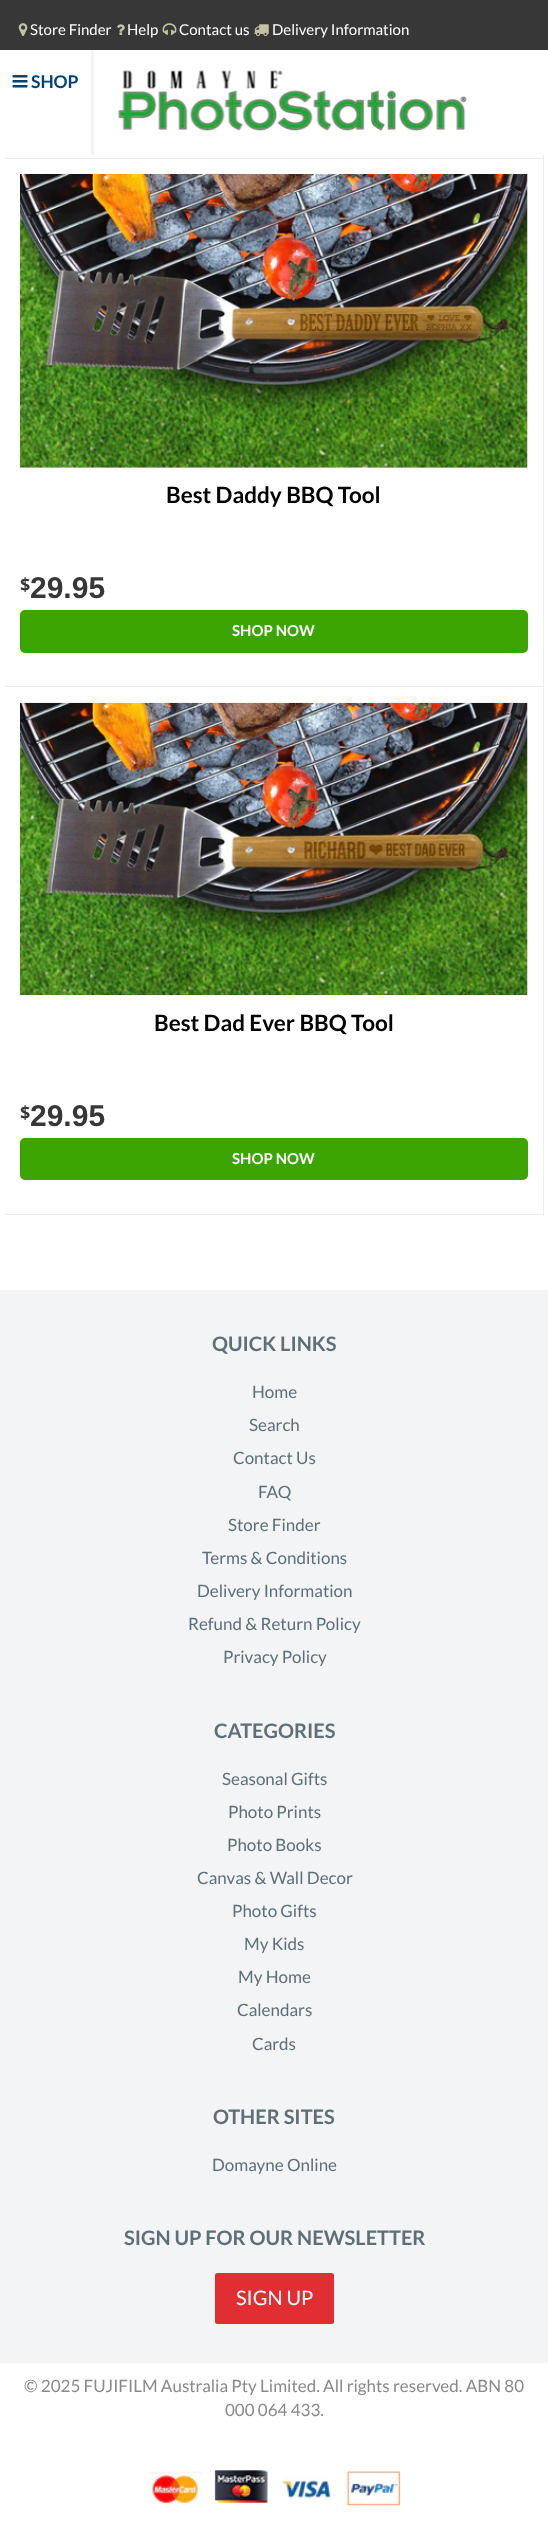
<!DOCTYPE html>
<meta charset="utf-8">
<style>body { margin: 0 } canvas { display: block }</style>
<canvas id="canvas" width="548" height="2528"></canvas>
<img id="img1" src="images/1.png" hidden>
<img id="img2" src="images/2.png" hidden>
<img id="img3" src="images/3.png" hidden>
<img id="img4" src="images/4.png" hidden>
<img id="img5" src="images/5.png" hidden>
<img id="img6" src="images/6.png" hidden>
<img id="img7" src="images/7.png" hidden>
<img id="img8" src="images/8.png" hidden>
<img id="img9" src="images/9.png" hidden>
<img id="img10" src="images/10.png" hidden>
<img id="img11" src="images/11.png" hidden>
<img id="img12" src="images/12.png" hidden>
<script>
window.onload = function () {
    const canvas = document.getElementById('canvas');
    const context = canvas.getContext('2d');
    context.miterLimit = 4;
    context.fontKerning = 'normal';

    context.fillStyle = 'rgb(255, 255, 255)';
    context.fillRect(0, 0, 548, 2528);
    context.fillStyle = 'rgb(55, 55, 55)';
    context.fillRect(0, 0, 548, 50);
    context.drawImage(document.getElementById('img1'), 18, 23, 10, 13);
    context.drawImage(document.getElementById('img2'), 117, 24, 8, 11);
    context.drawImage(document.getElementById('img3'), 162, 23, 15, 12);
    context.drawImage(document.getElementById('img4'), 254, 24, 15, 12);
    context.drawImage(document.getElementById('img5'), 12, 75, 16, 13);
    context.fillStyle = 'rgb(243, 244, 245)';
    context.fillRect(91, 50, 3, 105);
    context.drawImage(document.getElementById('img6'), 118, 70, 349, 61);
    context.fillStyle = 'rgb(235, 237, 238)';
    context.fillRect(543, 155, 1, 1060);
    context.fillRect(5, 158, 539, 1);
    context.fillRect(5, 686, 539, 1);
    context.drawImage(document.getElementById('img7'), 20, 174, 508, 294);
    context.fillStyle = 'rgb(60, 164, 0)';
    context.beginPath();
    context.roundRect(20, 610, 508, 43, 5);
    context.fill();
    context.fillStyle = 'rgb(235, 237, 238)';
    context.fillRect(5, 1214, 539, 1);
    context.drawImage(document.getElementById('img8'), 20, 702, 508, 294);
    context.fillStyle = 'rgb(60, 164, 0)';
    context.beginPath();
    context.roundRect(20, 1138, 508, 42, 5);
    context.fill();
    context.fillStyle = 'rgb(243, 244, 245)';
    context.fillRect(0, 1290, 548, 1073);
    context.fillStyle = 'rgb(224, 46, 50)';
    context.beginPath();
    context.roundRect(215, 2273, 119, 51, 2.5);
    context.fill();
    context.drawImage(document.getElementById('img9'), 148, 2471, 54, 35);
    context.drawImage(document.getElementById('img10'), 214, 2470, 54, 33);
    context.drawImage(document.getElementById('img11'), 281, 2475, 51, 28);
    context.drawImage(document.getElementById('img12'), 347, 2471, 54, 35);
    context.font = '15px Lato';
    context.fillStyle = 'rgb(255, 255, 255)';
    context.fillText('Store Finder', 30, 35);
    context.fillText('Help', 127, 35);
    context.fillText('Contact us', 179, 35);
    context.fillText('Delivery Information', 272, 35);
    context.font = 'bold 17.5px Lato';
    context.fillStyle = 'rgb(0, 67, 120)';
    context.fillText('SHOP', 31, 88);
    context.font = 'bold 22.5px Lato';
    context.fillStyle = 'rgb(0, 0, 0)';
    context.fillText('Best Daddy BBQ Tool', 166, 503);
    context.font = 'bold 18px Noto Sans';
    context.fillStyle = 'rgb(55, 55, 55)';
    context.fillText('$', 20, 591);
    context.font = 'bold 30px Liberation Sans';
    context.fillText('29.95', 30, 598);
    context.font = 'bold 15px Lato';
    context.fillStyle = 'rgb(255, 255, 255)';
    context.fillText('SHOP NOW', 232, 636);
    context.font = 'bold 22.5px Lato';
    context.fillStyle = 'rgb(0, 0, 0)';
    context.fillText('Best Dad Ever BBQ Tool', 154, 1031);
    context.font = 'bold 18px Noto Sans';
    context.fillStyle = 'rgb(55, 55, 55)';
    context.fillText('$', 20, 1119);
    context.font = 'bold 30px Liberation Sans';
    context.fillText('29.95', 30, 1126);
    context.font = 'bold 15px Lato';
    context.fillStyle = 'rgb(255, 255, 255)';
    context.fillText('SHOP NOW', 232, 1164);
    context.font = 'bold 20px Lato';
    context.fillStyle = 'rgb(94, 111, 119)';
    context.fillText('QUICK LINKS', 212, 1351);
    context.font = '17px Lato';
    context.fillText('Home', 252, 1398);
    context.fillText('Search', 249, 1431);
    context.fillText('Contact Us', 233, 1464);
    context.fillText('FAQ', 258, 1498);
    context.fillText('Store Finder', 228, 1531);
    context.fillText('Terms & Conditions', 202, 1564);
    context.fillText('Delivery Information', 197, 1597);
    context.fillText('Refund & Return Policy', 188, 1630);
    context.fillText('Privacy Policy', 223, 1663);
    context.font = 'bold 20px Lato';
    context.fillText('CATEGORIES', 214, 1738);
    context.font = '17px Lato';
    context.fillText('Seasonal Gifts', 222, 1785);
    context.fillText('Photo Prints', 228, 1818);
    context.fillText('Photo Books', 227, 1851);
    context.fillText('Canvas & Wall Decor', 197, 1884);
    context.fillText('Photo Gifts', 232, 1917);
    context.fillText('My Kids', 244, 1950);
    context.fillText('My Home', 238, 1983);
    context.fillText('Calendars', 237, 2016);
    context.fillText('Cards', 252, 2050);
    context.font = 'bold 20px Lato';
    context.fillText('OTHER SITES', 213, 2124);
    context.font = '17px Lato';
    context.fillText('Domayne Online', 212, 2171);
    context.font = 'bold 20px Lato';
    context.fillText('SIGN UP FOR OUR NEWSLETTER', 124, 2245);
    context.font = '20px Lato';
    context.fillStyle = 'rgb(255, 255, 255)';
    context.fillText('SIGN UP', 236, 2305);
    context.font = '17px Lato';
    context.fillStyle = 'rgb(137, 137, 137)';
    context.fillText('© 2025 FUJIFILM Australia Pty Limited. All rights reserved. ABN 80', 24, 2392);
    context.fillText('000 064 433.', 225, 2416);
};
</script>
